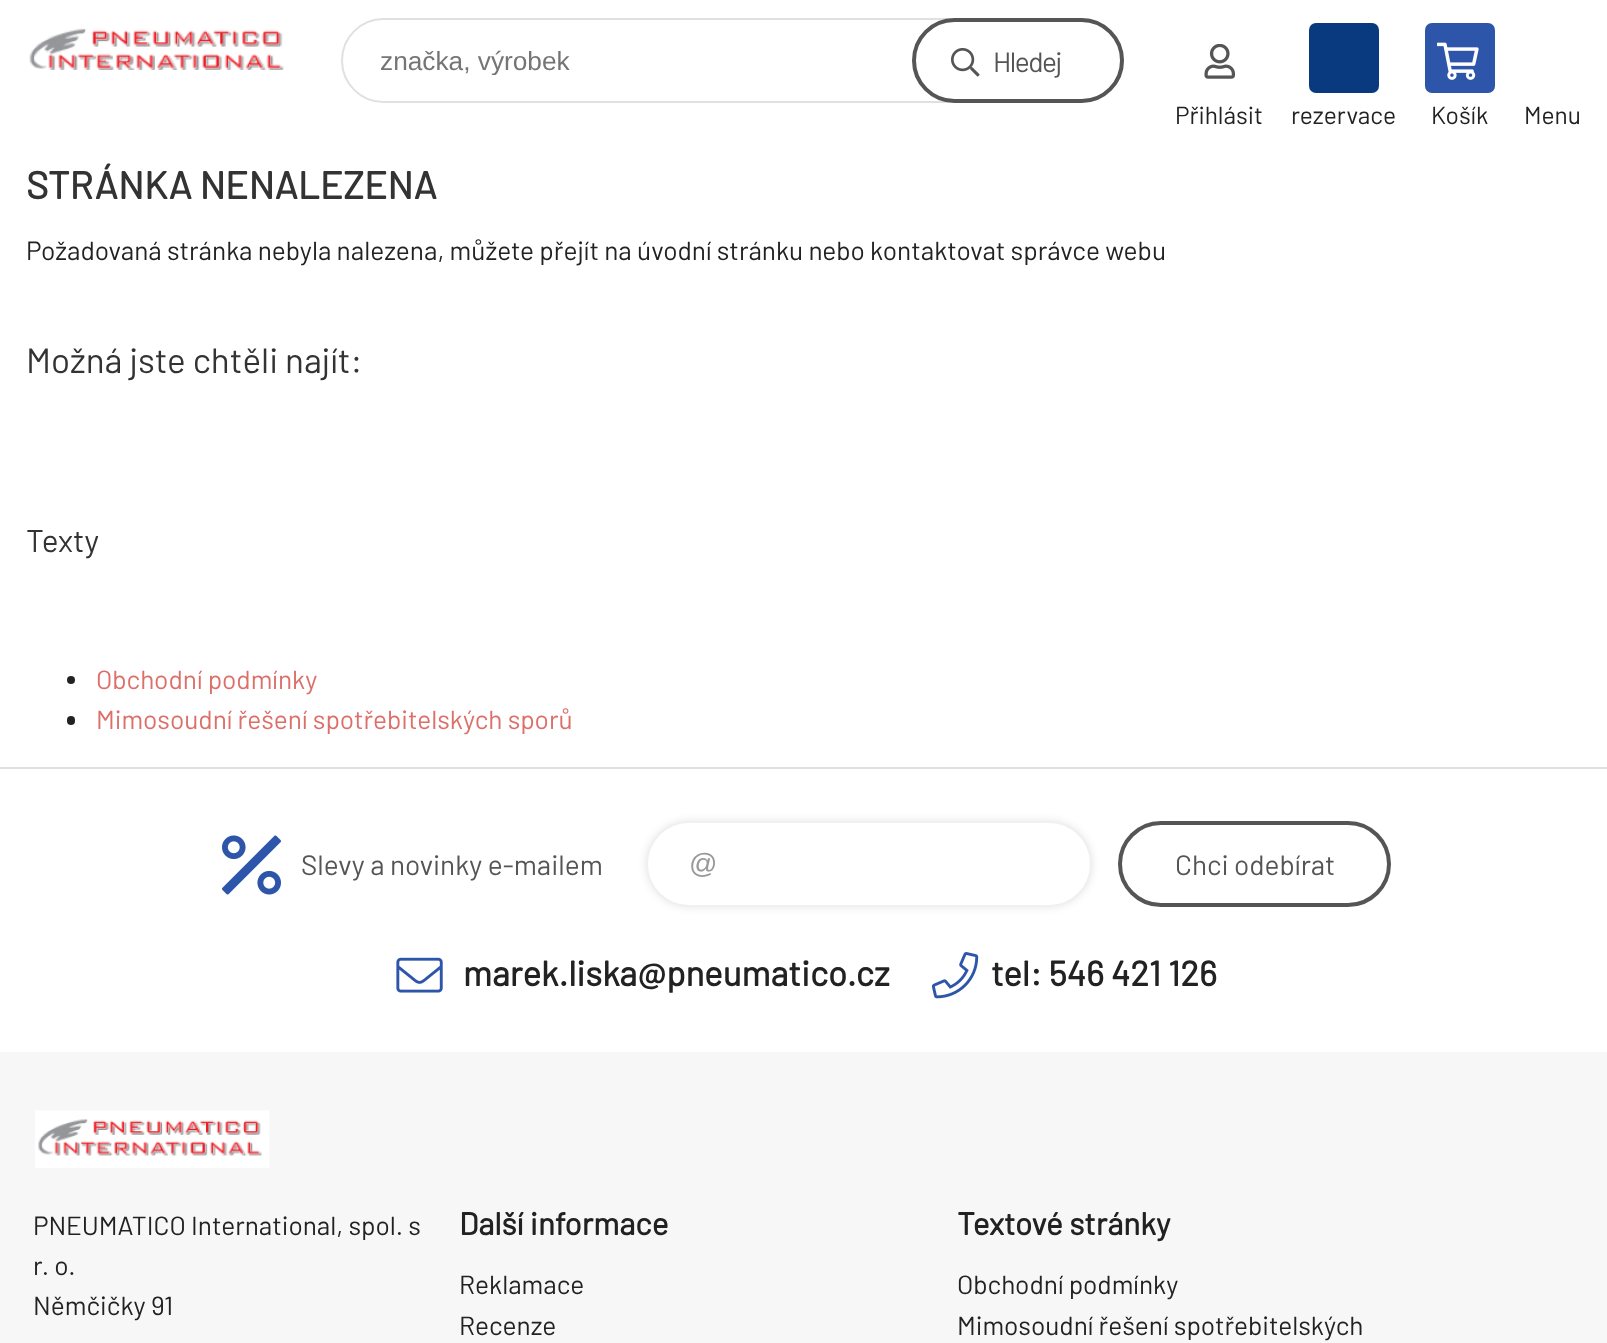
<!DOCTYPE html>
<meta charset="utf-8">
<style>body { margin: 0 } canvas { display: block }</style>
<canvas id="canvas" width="1607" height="1343"></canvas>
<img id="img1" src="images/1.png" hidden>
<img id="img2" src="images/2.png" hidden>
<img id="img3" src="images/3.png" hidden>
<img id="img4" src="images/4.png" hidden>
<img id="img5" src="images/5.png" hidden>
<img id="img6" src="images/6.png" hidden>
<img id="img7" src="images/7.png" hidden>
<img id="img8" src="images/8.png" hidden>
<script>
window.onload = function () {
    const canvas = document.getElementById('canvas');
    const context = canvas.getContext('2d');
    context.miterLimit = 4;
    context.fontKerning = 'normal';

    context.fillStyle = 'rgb(255, 255, 255)';
    context.fillRect(0, 0, 1607, 1343);
    context.drawImage(document.getElementById('img1'), 29, 28, 255, 42);
    context.beginPath();
    context.roundRect(342, 19, 781, 83, 41.5);
    context.strokeStyle = 'rgb(224, 224, 224)';
    context.lineWidth = 2;
    context.stroke();
    context.drawImage(document.getElementById('img2'), 950, 48, 30, 29);
    context.beginPath();
    context.roundRect(914, 20, 208, 81, 40.5);
    context.strokeStyle = 'rgb(85, 85, 85)';
    context.lineWidth = 4;
    context.stroke();
    context.drawImage(document.getElementById('img3'), 1204, 44, 32, 35);
    context.fillStyle = 'rgb(9, 58, 127)';
    context.beginPath();
    context.roundRect(1309, 23, 70, 70, 7);
    context.fill();
    context.fillStyle = 'rgb(45, 86, 170)';
    context.beginPath();
    context.roundRect(1425, 23, 70, 70, 7);
    context.fill();
    context.drawImage(document.getElementById('img4'), 1437, 42, 42, 38);
    context.fillStyle = 'rgb(34, 34, 34)';
    context.beginPath();
    context.arc(71, 680, 4, 0, 2 * Math.PI);
    context.fill();
    context.beginPath();
    context.roundRect(67, 716, 8, 9, 4);
    context.fill();
    context.fillStyle = 'rgb(224, 224, 224)';
    context.fillRect(0, 767, 1607, 2);
    context.drawImage(document.getElementById('img5'), 222, 835, 59, 60);
    context.fillStyle = 'rgba(0, 0, 0, 0.1)';
    context.filter = 'blur(4.5px)';
    context.beginPath();
    context.roundRect(646, 821, 446, 86, 43);
    context.fill();
    context.filter = 'none';
    context.fillStyle = 'rgb(255, 255, 255)';
    context.beginPath();
    context.roundRect(647, 822, 444, 84, 42);
    context.fill();
    context.strokeStyle = 'rgb(240, 240, 240)';
    context.lineWidth = 2;
    context.stroke();
    context.beginPath();
    context.roundRect(1120, 823, 269, 82, 41);
    context.strokeStyle = 'rgb(85, 85, 85)';
    context.lineWidth = 4;
    context.stroke();
    context.drawImage(document.getElementById('img6'), 396, 957, 47, 36);
    context.drawImage(document.getElementById('img7'), 931, 952, 48, 47);
    context.fillStyle = 'rgb(247, 247, 247)';
    context.fillRect(0, 1052, 1607, 291);
    context.drawImage(document.getElementById('img8'), 35, 1110, 235, 58);
    context.save();
    context.beginPath();
    context.rect(380, 46, 514, 29);
    context.clip();
    context.font = '26.25px Liberation Sans';
    context.fillStyle = 'rgb(117, 117, 117)';
    context.fillText('značka, výrobek', 380, 70);
    context.restore();
    context.letterSpacing = '-1.5px';
    context.font = '28px Barlow';
    context.fillStyle = 'rgb(85, 85, 85)';
    context.fillText('Hledej', 993, 72);
    context.letterSpacing = '0px';
    context.font = '24.5px Barlow';
    context.fillStyle = 'rgb(34, 34, 34)';
    context.fillText('Přihlásit', 1175, 124);
    context.fillText('rezervace', 1291, 124);
    context.fillText('Košík', 1431, 124);
    context.fillText('Menu', 1524, 124);
    context.font = 'bold 38.5px Barlow';
    context.fillStyle = 'rgb(51, 51, 51)';
    context.fillText('STRÁNKA NENALEZENA', 26, 199);
    context.font = '26.25px Barlow';
    context.fillStyle = 'rgb(34, 34, 34)';
    context.fillText('Požadovaná stránka nebyla nalezena, můžete přejít na úvodní stránku nebo kontaktovat správce webu', 26, 260);
    context.font = '35px Barlow';
    context.fillStyle = 'rgb(51, 51, 51)';
    context.fillText('Možná jste chtěli najít:', 26, 373);
    context.font = '31.5px Barlow';
    context.fillText('Texty', 26, 552);
    context.font = '26.25px Barlow';
    context.fillStyle = 'rgb(220, 111, 105)';
    context.fillText('Obchodní podmínky', 96, 689);
    context.fillText('Mimosoudní řešení spotřebitelských sporů', 96, 729);
    context.font = '28px Barlow';
    context.fillStyle = 'rgb(85, 85, 85)';
    context.fillText('Slevy a novinky e-mailem', 301, 875);
    context.font = '28px Liberation Sans';
    context.fillStyle = 'rgb(153, 153, 153)';
    context.fillText('@', 689, 873);
    context.font = '28px Barlow';
    context.fillStyle = 'rgb(85, 85, 85)';
    context.fillText('Chci', 1175, 875);
    context.fillText('odebírat', 1234, 875);
    context.font = 'bold 35px Barlow';
    context.fillStyle = 'rgb(34, 34, 34)';
    context.fillText('marek.liska@pneumatico.cz', 463, 986);
    context.fillText('tel: 546 421 126', 991, 986);
    context.font = '26.25px Barlow';
    context.fillText('PNEUMATICO International, spol. s', 33, 1235);
    context.fillText('r. o.', 33, 1275);
    context.fillText('Němčičky 91', 33, 1315);
    context.font = 'bold 31.5px Barlow';
    context.fillText('Další informace', 459, 1235);
    context.font = '26.25px Barlow';
    context.fillText('Reklamace', 459, 1294);
    context.fillText('Recenze', 459, 1335);
    context.font = 'bold 31.5px Barlow';
    context.fillText('Textové stránky', 957, 1235);
    context.font = '26.25px Barlow';
    context.fillText('Obchodní podmínky', 957, 1294);
    context.fillText('Mimosoudní řešení spotřebitelských', 957, 1335);
};
</script>
